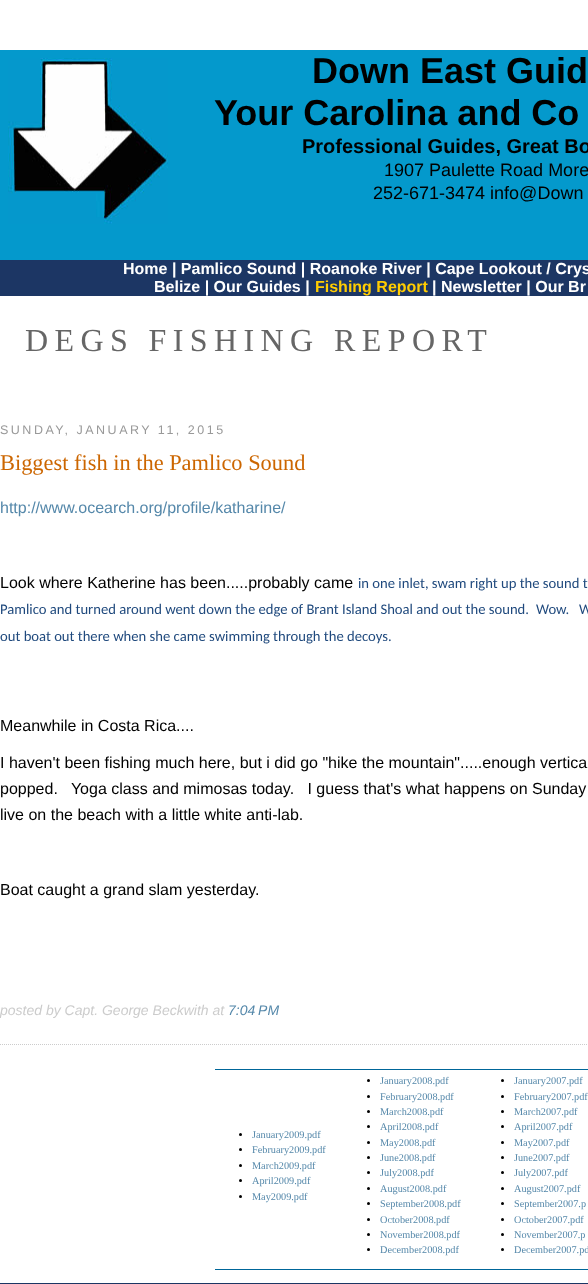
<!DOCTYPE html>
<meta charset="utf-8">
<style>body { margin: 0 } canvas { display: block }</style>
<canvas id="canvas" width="588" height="1284"></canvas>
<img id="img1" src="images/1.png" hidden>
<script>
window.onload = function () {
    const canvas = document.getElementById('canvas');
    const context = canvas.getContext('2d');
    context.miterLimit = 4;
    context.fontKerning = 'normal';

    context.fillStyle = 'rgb(255, 255, 255)';
    context.fillRect(0, 0, 588, 1284);
    context.fillStyle = 'rgb(4, 153, 204)';
    context.fillRect(0, 50, 588, 210);
    context.drawImage(document.getElementById('img1'), 8, 58, 160, 166);
    context.fillStyle = 'rgb(28, 54, 100)';
    context.fillRect(0, 260, 588, 36);
    context.beginPath();
    context.moveTo(0, 1044.5);
    context.lineTo(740, 1044.5);
    context.strokeStyle = 'rgb(204, 204, 204)';
    context.setLineDash([1, 1]);
    context.stroke();
    context.fillStyle = 'rgb(0, 102, 153)';
    context.fillRect(215, 1069, 373, 1);
    context.fillStyle = 'rgb(0, 0, 0)';
    context.beginPath();
    context.arc(240.5, 1134.5, 1.5, 0, 2 * Math.PI);
    context.fill();
    context.beginPath();
    context.arc(240.5, 1149.5, 1.5, 0, 2 * Math.PI);
    context.fill();
    context.beginPath();
    context.arc(240.5, 1165.5, 1.5, 0, 2 * Math.PI);
    context.fill();
    context.beginPath();
    context.arc(240.5, 1180.5, 1.5, 0, 2 * Math.PI);
    context.fill();
    context.beginPath();
    context.arc(240.5, 1196.5, 1.5, 0, 2 * Math.PI);
    context.fill();
    context.beginPath();
    context.arc(368.5, 1080.5, 1.5, 0, 2 * Math.PI);
    context.fill();
    context.beginPath();
    context.arc(368.5, 1096.5, 1.5, 0, 2 * Math.PI);
    context.fill();
    context.beginPath();
    context.arc(368.5, 1111.5, 1.5, 0, 2 * Math.PI);
    context.fill();
    context.beginPath();
    context.arc(368.5, 1126.5, 1.5, 0, 2 * Math.PI);
    context.fill();
    context.beginPath();
    context.arc(368.5, 1142.5, 1.5, 0, 2 * Math.PI);
    context.fill();
    context.beginPath();
    context.arc(368.5, 1157.5, 1.5, 0, 2 * Math.PI);
    context.fill();
    context.beginPath();
    context.arc(368.5, 1172.5, 1.5, 0, 2 * Math.PI);
    context.fill();
    context.beginPath();
    context.arc(368.5, 1188.5, 1.5, 0, 2 * Math.PI);
    context.fill();
    context.beginPath();
    context.arc(368.5, 1203.5, 1.5, 0, 2 * Math.PI);
    context.fill();
    context.beginPath();
    context.arc(368.5, 1219.5, 1.5, 0, 2 * Math.PI);
    context.fill();
    context.beginPath();
    context.arc(368.5, 1234.5, 1.5, 0, 2 * Math.PI);
    context.fill();
    context.beginPath();
    context.arc(368.5, 1249.5, 1.5, 0, 2 * Math.PI);
    context.fill();
    context.fillStyle = 'rgb(0, 102, 153)';
    context.fillRect(215, 1269, 373, 1);
    context.fillStyle = 'rgb(0, 0, 0)';
    context.beginPath();
    context.arc(502.5, 1080.5, 1.5, 0, 2 * Math.PI);
    context.fill();
    context.beginPath();
    context.arc(502.5, 1096.5, 1.5, 0, 2 * Math.PI);
    context.fill();
    context.beginPath();
    context.arc(502.5, 1111.5, 1.5, 0, 2 * Math.PI);
    context.fill();
    context.beginPath();
    context.arc(502.5, 1126.5, 1.5, 0, 2 * Math.PI);
    context.fill();
    context.beginPath();
    context.arc(502.5, 1142.5, 1.5, 0, 2 * Math.PI);
    context.fill();
    context.beginPath();
    context.arc(502.5, 1157.5, 1.5, 0, 2 * Math.PI);
    context.fill();
    context.beginPath();
    context.arc(502.5, 1172.5, 1.5, 0, 2 * Math.PI);
    context.fill();
    context.beginPath();
    context.arc(502.5, 1188.5, 1.5, 0, 2 * Math.PI);
    context.fill();
    context.beginPath();
    context.arc(502.5, 1203.5, 1.5, 0, 2 * Math.PI);
    context.fill();
    context.beginPath();
    context.arc(502.5, 1219.5, 1.5, 0, 2 * Math.PI);
    context.fill();
    context.beginPath();
    context.arc(502.5, 1234.5, 1.5, 0, 2 * Math.PI);
    context.fill();
    context.beginPath();
    context.arc(502.5, 1249.5, 1.5, 0, 2 * Math.PI);
    context.fill();
    context.fillStyle = 'rgb(28, 54, 100)';
    context.fillRect(0, 1283, 588, 1);
    context.font = 'bold 36px Liberation Sans';
    context.fillStyle = 'rgb(0, 0, 0)';
    context.fillText('Down East Guid', 312, 83);
    context.fillText('Your Carolina and Co', 214, 125);
    context.font = 'bold 20px Liberation Sans';
    context.fillText('Professional Guides, Great Bo', 302, 153);
    context.font = '18px Liberation Sans';
    context.fillText('1907 Paulette Road More', 384, 176);
    context.fillText('252-671-3474 info@Down', 373, 199);
    context.font = 'bold 16px Liberation Sans';
    context.fillStyle = 'rgb(255, 255, 255)';
    context.fillText('Home | Pamlico Sound | Roanoke River | Cape Lookout / Crys', 123, 274);
    context.fillText('Belize | Our Guides |', 154, 292);
    context.fillStyle = 'rgb(255, 204, 1)';
    context.fillText('Fishing Report', 315, 292);
    context.fillStyle = 'rgb(255, 255, 255)';
    context.fillText('| Newsletter | Our Br', 432, 292);
    context.letterSpacing = '6.4px';
    context.font = '32px Liberation Serif';
    context.fillStyle = 'rgb(102, 102, 102)';
    context.fillText('DEGS FISHING REPORT', 25, 351);
    context.letterSpacing = '2.5px';
    context.font = '12.5px Liberation Sans';
    context.fillStyle = 'rgb(153, 153, 153)';
    context.fillText('SUNDAY, JANUARY 11, 2015', 0, 434);
    context.letterSpacing = '0px';
    context.font = '22.4px Liberation Serif';
    context.fillStyle = 'rgb(204, 102, 0)';
    context.fillText('Biggest fish in the Pamlico Sound', 0, 470);
    context.font = '16px Liberation Sans';
    context.fillStyle = 'rgb(85, 136, 170)';
    context.fillText('http://www.ocearch.org/profile/katharine/', 0, 513);
    context.fillStyle = 'rgb(0, 0, 0)';
    context.fillText('Look where Katherine has been.....probably came', 0, 588);
    context.font = '14.65px Carlito';
    context.fillStyle = 'rgb(31, 73, 125)';
    context.fillText('in one inlet, swam right up the sound t', 358, 588);
    context.fillText('Pamlico and turned around went down the edge of Brant Island Shoal and out the sound.', 0, 614);
    context.fillText('Wow.', 536, 614);
    context.fillText('W', 579, 614);
    context.fillText('out boat out there when she came swimming through the decoys.', 0, 641);
    context.font = '16px Liberation Sans';
    context.fillStyle = 'rgb(0, 0, 0)';
    context.fillText('Meanwhile in Costa Rica....', 0, 731);
    context.fillText('I haven\'t been fishing much here, but i did go "hike the mountain".....enough vertica', 0, 768);
    context.fillText('popped.   Yoga class and mimosas today.   I guess that\'s what happens on Sunday', 0, 794);
    context.fillText('live on the beach with a little white anti-lab.', 0, 820);
    context.fillText('Boat caught a grand slam yesterday.', 0, 895);
    context.font = 'italic 14px Liberation Sans';
    context.fillStyle = 'rgb(204, 204, 204)';
    context.fillText('posted by Capt. George Beckwith at', 0, 1015);
    context.fillStyle = 'rgb(85, 136, 170)';
    context.fillText('7:04 PM', 228, 1015);
    context.font = '10.25px Liberation Serif';
    context.fillText('January2009.pdf', 252, 1138);
    context.fillText('February2009.pdf', 252, 1153);
    context.fillText('March2009.pdf', 252, 1169);
    context.fillText('April2009.pdf', 252, 1184);
    context.fillText('May2009.pdf', 252, 1200);
    context.fillText('January2008.pdf', 380, 1084);
    context.fillText('February2008.pdf', 380, 1100);
    context.fillText('March2008.pdf', 380, 1115);
    context.fillText('April2008.pdf', 380, 1130);
    context.fillText('May2008.pdf', 380, 1146);
    context.fillText('June2008.pdf', 380, 1161);
    context.fillText('July2008.pdf', 380, 1176);
    context.fillText('August2008.pdf', 380, 1192);
    context.fillText('September2008.pdf', 380, 1207);
    context.fillText('October2008.pdf', 380, 1223);
    context.fillText('November2008.pdf', 380, 1238);
    context.fillText('December2008.pdf', 380, 1253);
    context.fillText('January2007.pdf', 514, 1084);
    context.fillText('February2007.pdf', 514, 1100);
    context.fillText('March2007.pdf', 514, 1115);
    context.fillText('April2007.pdf', 514, 1130);
    context.fillText('May2007.pdf', 514, 1146);
    context.fillText('June2007.pdf', 514, 1161);
    context.fillText('July2007.pdf', 514, 1176);
    context.fillText('August2007.pdf', 514, 1192);
    context.fillText('September2007.p', 514, 1207);
    context.fillText('October2007.pdf', 514, 1223);
    context.fillText('November2007.p', 514, 1238);
    context.fillText('December2007.pd', 514, 1253);
};
</script>
